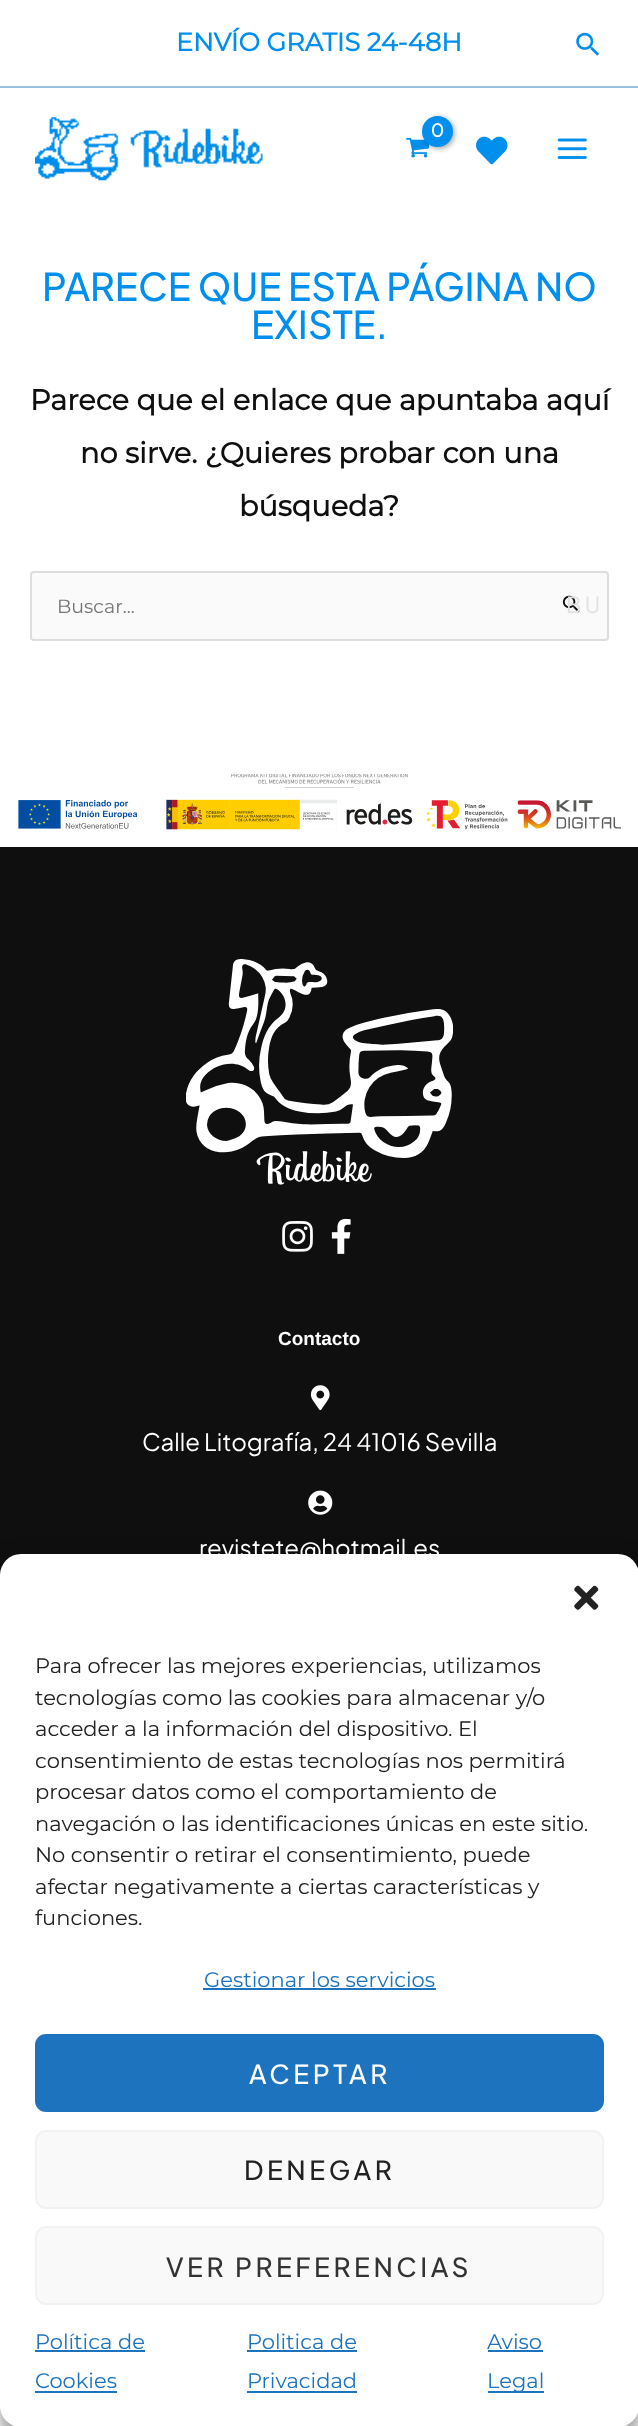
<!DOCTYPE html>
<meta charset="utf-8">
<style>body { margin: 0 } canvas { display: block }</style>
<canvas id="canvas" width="638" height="2426"></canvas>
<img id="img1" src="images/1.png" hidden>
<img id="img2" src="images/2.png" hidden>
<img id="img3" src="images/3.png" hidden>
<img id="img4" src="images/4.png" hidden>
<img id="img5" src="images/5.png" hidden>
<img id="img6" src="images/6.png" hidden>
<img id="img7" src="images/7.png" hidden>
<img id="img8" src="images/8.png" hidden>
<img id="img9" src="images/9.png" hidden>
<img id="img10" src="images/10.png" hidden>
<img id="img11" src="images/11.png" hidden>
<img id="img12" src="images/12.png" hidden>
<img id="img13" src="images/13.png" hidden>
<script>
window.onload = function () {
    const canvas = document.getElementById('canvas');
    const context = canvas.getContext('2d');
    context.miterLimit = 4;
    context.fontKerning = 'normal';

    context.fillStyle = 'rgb(255, 255, 255)';
    context.fillRect(0, 0, 638, 2426);
    context.fillStyle = 'rgb(152, 194, 222)';
    context.fillRect(0, 86, 638, 2);
    context.drawImage(document.getElementById('img1'), 576, 32, 23, 24);
    context.drawImage(document.getElementById('img2'), 35, 117, 228, 64);
    context.drawImage(document.getElementById('img3'), 406, 137, 24, 21);
    context.fillStyle = 'rgba(0, 0, 0, 0.3)';
    context.filter = 'blur(2.5px)';
    context.beginPath();
    context.roundRect(424, 117, 31, 32, 15.5);
    context.fill();
    context.filter = 'none';
    context.fillStyle = 'rgb(0, 143, 237)';
    context.beginPath();
    context.arc(437.5, 131.5, 15.5, 0, 2 * Math.PI);
    context.fill();
    context.drawImage(document.getElementById('img4'), 476, 136, 32, 29);
    context.drawImage(document.getElementById('img5'), 557, 138, 30, 21);
    context.fillStyle = 'rgb(250, 250, 250)';
    context.beginPath();
    context.roundRect(31, 572, 577, 68, 3);
    context.fill();
    context.strokeStyle = 'rgb(221, 221, 221)';
    context.lineWidth = 2;
    context.stroke();
    context.drawImage(document.getElementById('img6'), 562, 595, 18, 18);
    context.drawImage(document.getElementById('img7'), 18, 774, 603, 56);
    context.fillStyle = 'rgb(15, 15, 15)';
    context.fillRect(0, 847, 638, 728);
    context.drawImage(document.getElementById('img8'), 186, 959, 267, 226);
    context.drawImage(document.getElementById('img9'), 282, 1221, 31, 31);
    context.drawImage(document.getElementById('img10'), 331, 1218, 20, 36);
    context.drawImage(document.getElementById('img11'), 310, 1385, 20, 26);
    context.drawImage(document.getElementById('img12'), 308, 1490, 25, 25);
    context.fillStyle = 'rgba(0, 0, 0, 0.23)';
    context.filter = 'blur(5px)';
    context.beginPath();
    context.roundRect(0, 1565, 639, 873, 21);
    context.fill();
    context.filter = 'none';
    context.fillStyle = 'rgba(0, 0, 0, 0.19)';
    context.filter = 'blur(17.5px)';
    context.beginPath();
    context.roundRect(0, 1572, 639, 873, 21);
    context.fill();
    context.filter = 'none';
    context.fillStyle = 'rgb(255, 255, 255)';
    context.beginPath();
    context.roundRect(0, 1554, 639, 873, 21);
    context.fill();
    context.drawImage(document.getElementById('img13'), 574, 1585, 25, 25);
    context.fillStyle = 'rgb(30, 115, 190)';
    context.fillRect(203, 1988, 233, 2);
    context.beginPath();
    context.roundRect(36, 2035, 567, 76, 10);
    context.fill();
    context.strokeStyle = 'rgb(30, 115, 190)';
    context.stroke();
    context.fillStyle = 'rgb(249, 249, 249)';
    context.beginPath();
    context.roundRect(36, 2131, 567, 77, 10);
    context.fill();
    context.strokeStyle = 'rgb(242, 242, 242)';
    context.stroke();
    context.beginPath();
    context.roundRect(36, 2227, 567, 77, 10);
    context.fill();
    context.stroke();
    context.fillStyle = 'rgb(30, 115, 190)';
    context.fillRect(35, 2350, 110, 2);
    context.fillRect(35, 2391, 82, 2);
    context.fillRect(247, 2350, 110, 2);
    context.fillRect(247, 2391, 110, 2);
    context.fillRect(488, 2350, 55, 2);
    context.fillRect(488, 2391, 56, 2);
    context.font = 'bold 25.5px Montserrat';
    context.fillStyle = 'rgb(0, 143, 237)';
    context.fillText('ENVÍO GRATIS 24-48H', 176, 51);
    context.letterSpacing = '-1px';
    context.font = 'bold 19px Montserrat';
    context.fillStyle = 'rgb(255, 255, 255)';
    context.fillText('0', 431, 137);
    context.letterSpacing = '0px';
    context.font = '500 38.25px Plus Jakarta Sans';
    context.fillStyle = 'rgb(0, 143, 237)';
    context.fillText('PARECE QUE ESTA PÁGINA NO', 42, 301);
    context.fillText('EXISTE.', 251, 339);
    context.font = 'bold 28.75px Montserrat';
    context.fillStyle = 'rgb(15, 15, 15)';
    context.fillText('Parece que el enlace que apuntaba aquí', 30, 410);
    context.fillText('no sirve. ¿Quieres probar con una', 80, 463);
    context.fillText('búsqueda?', 239, 516);
    context.font = '100 19px Montserrat';
    context.fillStyle = 'rgb(117, 117, 117)';
    context.fillText('Buscar...', 57, 613);
    context.letterSpacing = '3.5px';
    context.font = '22px Plus Jakarta Sans';
    context.fillStyle = 'rgb(226, 226, 226)';
    context.fillText('BU', 566, 613);
    context.letterSpacing = '0px';
    context.font = 'bold 19px Liberation Sans';
    context.fillStyle = 'rgb(255, 255, 255)';
    context.fillText('Contacto', 278, 1345);
    context.font = '24px Plus Jakarta Sans';
    context.fillText('Calle Litografía, 24 41016 Sevilla', 142, 1451);
    context.fillText('revistete@hotmail.es', 199, 1557);
    context.font = '100 21px Montserrat';
    context.fillStyle = 'rgb(34, 34, 34)';
    context.fillText('Para ofrecer las mejores experiencias, utilizamos', 35, 1673);
    context.fillText('tecnologías como las cookies para almacenar y/o', 35, 1705);
    context.fillText('acceder a la información del dispositivo. El', 35, 1736);
    context.fillText('consentimiento de estas tecnologías nos permitirá', 35, 1768);
    context.fillText('procesar datos como el comportamiento de', 35, 1799);
    context.fillText('navegación o las identificaciones únicas en este sitio.', 35, 1831);
    context.fillText('No consentir o retirar el consentimiento, puede', 35, 1862);
    context.fillText('afectar negativamente a ciertas características y', 35, 1894);
    context.fillText('funciones.', 35, 1925);
    context.fillStyle = 'rgb(30, 115, 190)';
    context.fillText('Gestionar los servicios', 204, 1987);
    context.letterSpacing = '3.5px';
    context.font = '500 26.25px Plus Jakarta Sans';
    context.fillStyle = 'rgb(255, 255, 255)';
    context.fillText('ACEPTAR', 249, 2084);
    context.fillStyle = 'rgb(34, 34, 34)';
    context.fillText('DENEGAR', 244, 2180);
    context.fillStyle = 'rgb(51, 51, 51)';
    context.fillText('VER PREFERENCIAS', 166, 2277);
    context.letterSpacing = '0px';
    context.font = '100 21px Montserrat';
    context.fillStyle = 'rgb(30, 115, 190)';
    context.fillText('Política de', 35, 2349);
    context.fillText('Cookies', 35, 2388);
    context.fillText('Politica de', 247, 2349);
    context.fillText('Privacidad', 247, 2388);
    context.fillText('Aviso', 487, 2349);
    context.fillText('Legal', 487, 2388);
};
</script>
